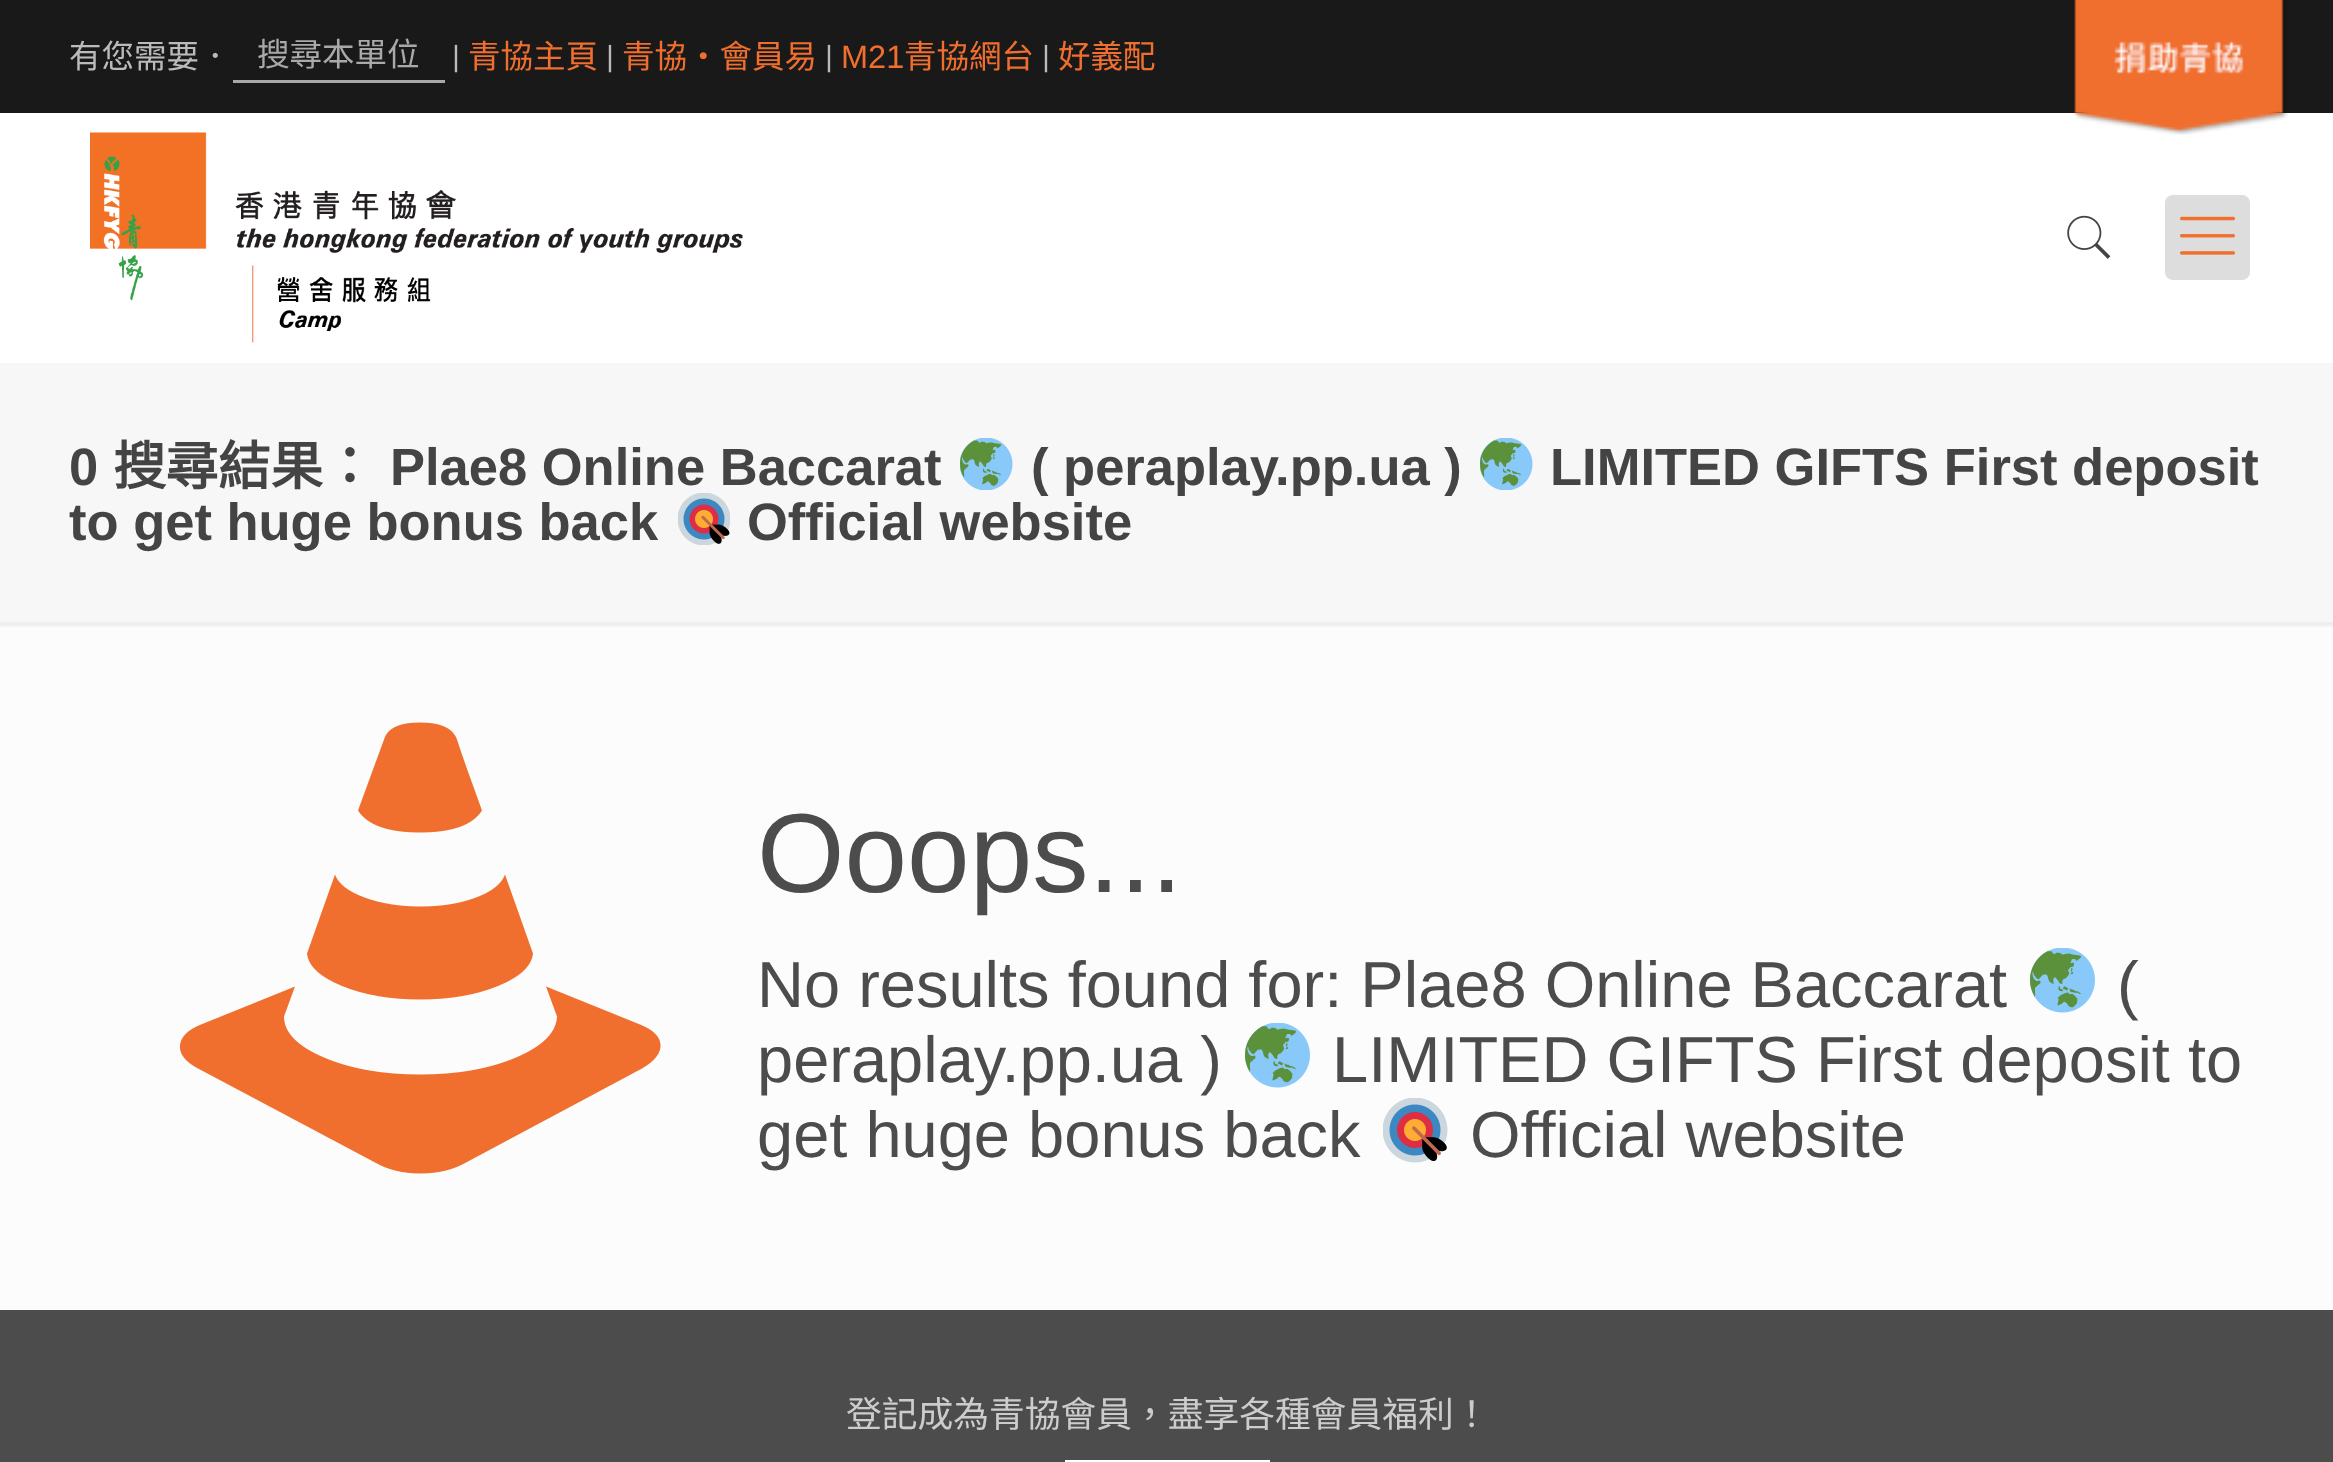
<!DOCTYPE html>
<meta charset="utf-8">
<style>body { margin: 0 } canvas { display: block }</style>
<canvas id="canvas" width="2333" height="1462"></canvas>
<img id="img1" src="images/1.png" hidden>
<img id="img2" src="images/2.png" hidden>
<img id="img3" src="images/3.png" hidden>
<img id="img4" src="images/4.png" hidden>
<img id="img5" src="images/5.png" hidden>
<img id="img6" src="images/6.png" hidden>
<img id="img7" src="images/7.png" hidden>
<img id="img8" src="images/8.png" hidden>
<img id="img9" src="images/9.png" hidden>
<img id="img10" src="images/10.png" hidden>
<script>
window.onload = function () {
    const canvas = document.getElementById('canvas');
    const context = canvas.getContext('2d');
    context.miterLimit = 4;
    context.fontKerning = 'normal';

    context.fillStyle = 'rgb(252, 252, 252)';
    context.fillRect(0, 0, 2333, 1462);
    context.fillStyle = 'rgb(26, 25, 25)';
    context.fillRect(0, 0, 2333, 113);
    context.fillStyle = 'rgb(169, 169, 169)';
    context.fillRect(233, 80, 212, 3);
    context.fillStyle = 'rgb(255, 255, 255)';
    context.fillRect(0, 113, 2333, 250);
    context.drawImage(document.getElementById('img1'), 2074, 0, 214, 135);
    context.drawImage(document.getElementById('img2'), 90, 132, 653, 211);
    context.fillStyle = 'rgb(221, 221, 221)';
    context.beginPath();
    context.roundRect(2165, 195, 85, 85, 8);
    context.fill();
    context.drawImage(document.getElementById('img3'), 2180, 216, 55, 39);
    context.drawImage(document.getElementById('img4'), 2067, 215, 44, 44);
    context.fillStyle = 'rgb(247, 247, 247)';
    context.fillRect(0, 363, 2333, 260);
    context.drawImage(document.getElementById('img5'), 960, 438, 53, 52);
    context.drawImage(document.getElementById('img5'), 1480, 438, 53, 52);
    context.drawImage(document.getElementById('img6'), 678, 493, 52, 52);
    context.drawImage(document.getElementById('img7'), 0, 622, 2333, 5);
    context.drawImage(document.getElementById('img8'), 179, 722, 482, 452);
    context.drawImage(document.getElementById('img9'), 2030, 948, 65, 65);
    context.drawImage(document.getElementById('img9'), 1245, 1023, 65, 65);
    context.drawImage(document.getElementById('img10'), 1383, 1098, 65, 65);
    context.fillStyle = 'rgb(76, 76, 76)';
    context.fillRect(0, 1310, 2333, 152);
    context.fillStyle = 'rgb(255, 255, 255)';
    context.fillRect(1065, 1460, 205, 2);
    context.font = '32.5px Noto Sans CJK HK';
    context.fillStyle = 'rgb(187, 187, 187)';
    context.fillText('有您需要．', 69, 68);
    context.fillStyle = 'rgb(169, 169, 169)';
    context.fillText('搜尋本單位', 257, 66);
    context.font = '32.5px Roboto';
    context.fillStyle = 'rgb(187, 187, 187)';
    context.fillText('|', 452, 68);
    context.font = '32.5px Noto Sans CJK HK';
    context.fillStyle = 'rgb(240, 111, 46)';
    context.fillText('青協主頁', 468, 68);
    context.font = '32.5px Roboto';
    context.fillStyle = 'rgb(187, 187, 187)';
    context.fillText('|', 606, 68);
    context.font = '32.5px Noto Sans CJK HK';
    context.fillStyle = 'rgb(240, 111, 46)';
    context.fillText('青協・會員易', 622, 68);
    context.font = '32.5px Roboto';
    context.fillStyle = 'rgb(187, 187, 187)';
    context.fillText('|', 825, 68);
    context.font = '32.5px Liberation Sans';
    context.fillStyle = 'rgb(240, 111, 46)';
    context.fillText('M21', 841, 68);
    context.font = '32.5px Noto Sans CJK HK';
    context.fillText('青協網台', 904, 68);
    context.font = '32.5px Roboto';
    context.fillStyle = 'rgb(187, 187, 187)';
    context.fillText('|', 1042, 68);
    context.font = '32.5px Noto Sans CJK HK';
    context.fillStyle = 'rgb(240, 111, 46)';
    context.fillText('好義配', 1058, 68);
    context.font = 'bold 52.5px Liberation Sans';
    context.fillStyle = 'rgb(68, 68, 68)';
    context.fillText('0', 69, 485);
    context.font = 'bold 52.5px Noto Sans CJK HK';
    context.fillText('搜尋結果：', 113, 485);
    context.font = 'bold 52.5px Liberation Sans';
    context.fillText('Plae8 Online Baccarat', 390, 485);
    context.fillText('( peraplay.pp.ua )', 1031, 485);
    context.fillText('LIMITED GIFTS First deposit', 1550, 485);
    context.fillText('to get huge bonus back', 69, 540);
    context.fillText('Official website', 747, 540);
    context.font = '112.5px Liberation Sans';
    context.fillStyle = 'rgb(76, 76, 76)';
    context.fillText('Ooops...', 757, 892);
    context.font = '65px Liberation Sans';
    context.fillText('No results found for: Plae8 Online Baccarat', 757, 1007);
    context.fillText('(', 2117, 1007);
    context.fillText('peraplay.pp.ua )', 757, 1082);
    context.fillText('LIMITED GIFTS First deposit to', 1332, 1082);
    context.fillText('get huge bonus back', 757, 1157);
    context.fillText('Official website', 1470, 1157);
    context.font = '35.75px Noto Sans CJK HK';
    context.fillStyle = 'rgb(204, 204, 204)';
    context.fillText('登記成為青協會員，盡享各種會員福利！', 846, 1427);
};
</script>
